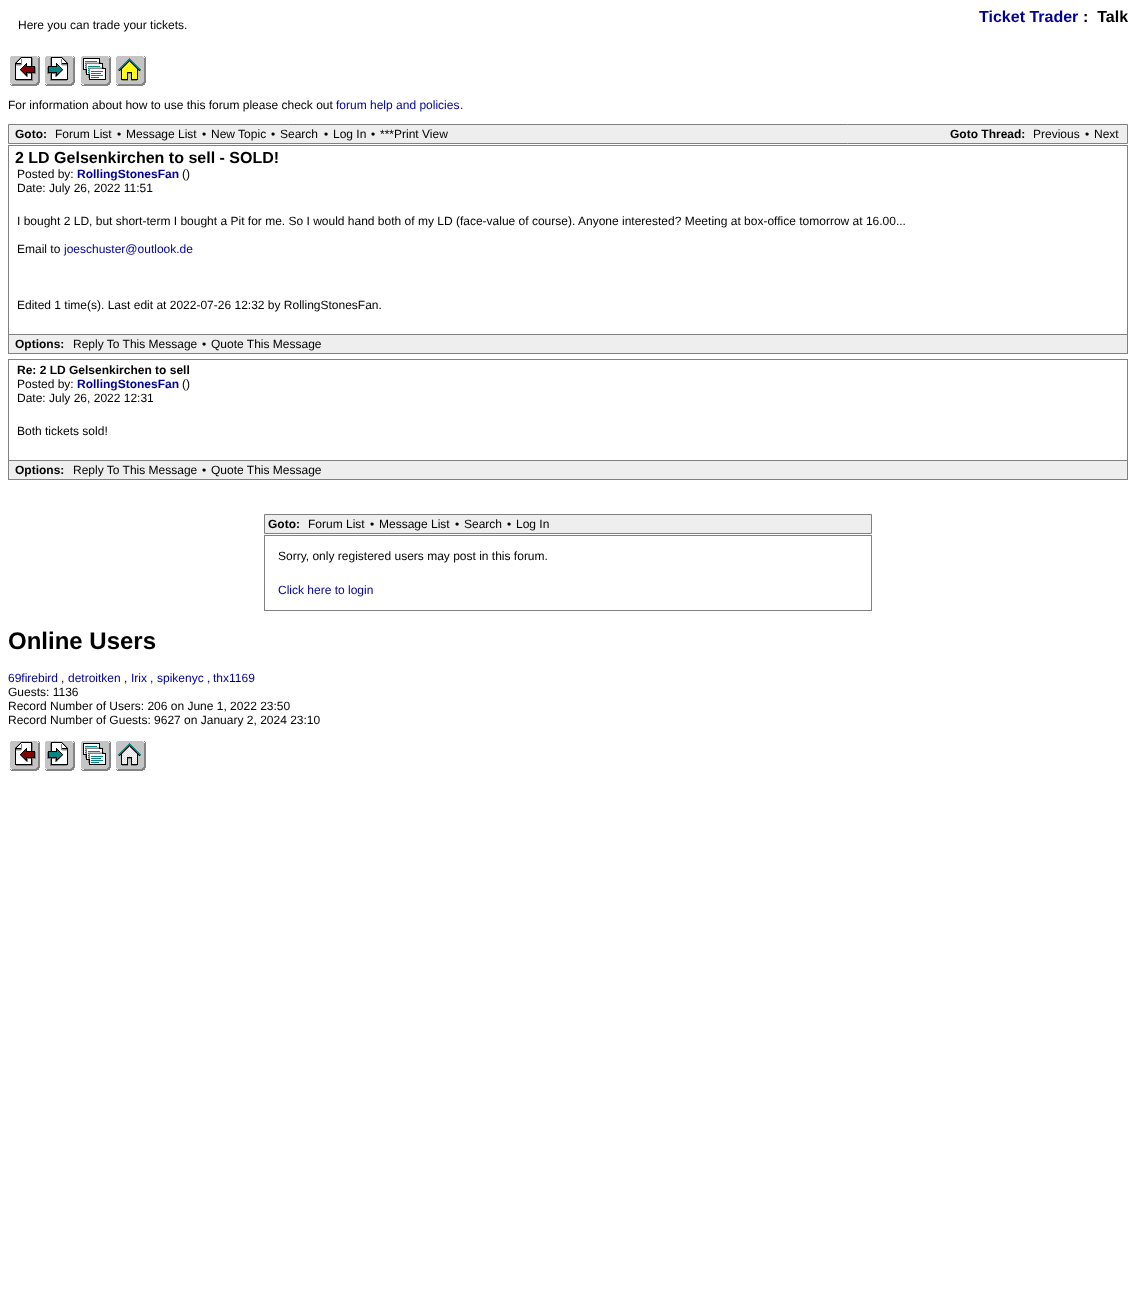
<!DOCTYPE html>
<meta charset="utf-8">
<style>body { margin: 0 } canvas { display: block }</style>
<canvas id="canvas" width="1136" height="1293"></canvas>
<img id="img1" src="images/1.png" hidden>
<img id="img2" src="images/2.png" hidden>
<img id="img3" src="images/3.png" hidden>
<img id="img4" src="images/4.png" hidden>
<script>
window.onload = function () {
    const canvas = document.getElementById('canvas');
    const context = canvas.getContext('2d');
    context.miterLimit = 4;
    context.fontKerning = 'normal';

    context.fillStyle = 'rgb(255, 255, 255)';
    context.fillRect(0, 0, 1136, 1293);
    context.drawImage(document.getElementById('img1'), 10, 56, 30, 30);
    context.drawImage(document.getElementById('img2'), 45, 56, 30, 30);
    context.drawImage(document.getElementById('img3'), 81, 56, 30, 30);
    context.drawImage(document.getElementById('img4'), 116, 56, 30, 30);
    context.fillStyle = 'rgb(238, 238, 238)';
    context.beginPath();
    context.rect(8.5, 124.5, 1119, 19);
    context.fill();
    context.strokeStyle = 'rgb(128, 128, 128)';
    context.stroke();
    context.strokeRect(8.5, 145.5, 1119, 189);
    context.fillRect(9, 335, 1118, 18);
    context.fillStyle = 'rgb(128, 128, 128)';
    context.fillRect(1127, 335, 1, 19);
    context.fillRect(8, 353, 1120, 1);
    context.fillRect(8, 335, 1, 19);
    context.strokeRect(8.5, 359.5, 1119, 101);
    context.fillStyle = 'rgb(238, 238, 238)';
    context.fillRect(9, 461, 1118, 18);
    context.fillStyle = 'rgb(128, 128, 128)';
    context.fillRect(1127, 461, 1, 19);
    context.fillRect(8, 479, 1120, 1);
    context.fillRect(8, 461, 1, 19);
    context.fillStyle = 'rgb(238, 238, 238)';
    context.beginPath();
    context.rect(264.5, 514.5, 607, 19);
    context.fill();
    context.stroke();
    context.strokeRect(264.5, 535.5, 607, 75);
    context.drawImage(document.getElementById('img1'), 10, 741, 30, 30);
    context.drawImage(document.getElementById('img2'), 45, 741, 30, 30);
    context.drawImage(document.getElementById('img3'), 81, 741, 30, 30);
    context.drawImage(document.getElementById('img4'), 116, 741, 30, 30);
    context.font = 'bold 16px Liberation Sans';
    context.fillStyle = 'rgb(0, 0, 153)';
    context.fillText('Ticket Trader', 979, 22);
    context.fillStyle = 'rgb(0, 0, 0)';
    context.fillText(':  Talk', 1083, 22);
    context.font = '12px Liberation Sans';
    context.fillText('Here you can trade your tickets.', 18, 29);
    context.fillText('For information about how to use this forum please check out', 8, 109);
    context.fillStyle = 'rgb(0, 0, 153)';
    context.fillText('forum help and policies', 336, 109);
    context.fillStyle = 'rgb(0, 0, 0)';
    context.fillText('.', 460, 109);
    context.font = 'bold 12px Liberation Sans';
    context.fillText('Goto:', 15, 138);
    context.font = '12px Liberation Sans';
    context.fillText('Forum List', 55, 138);
    context.fillText('•', 117, 138);
    context.fillText('Message List', 126, 138);
    context.fillText('•', 202, 138);
    context.fillText('New Topic', 211, 138);
    context.fillText('•', 271, 138);
    context.fillText('Search', 280, 138);
    context.fillText('•', 324, 138);
    context.fillText('Log In', 333, 138);
    context.fillText('•', 371, 138);
    context.fillText('***Print View', 380, 138);
    context.font = 'bold 12px Liberation Sans';
    context.fillText('Goto Thread:', 950, 138);
    context.font = '12px Liberation Sans';
    context.fillText('Previous', 1033, 138);
    context.fillText('•', 1085, 138);
    context.fillText('Next', 1094, 138);
    context.font = 'bold 16px Liberation Sans';
    context.fillText('2 LD Gelsenkirchen to sell - SOLD!', 15, 163);
    context.font = '12px Liberation Sans';
    context.fillText('Posted by:', 17, 178);
    context.font = 'bold 12px Liberation Sans';
    context.fillStyle = 'rgb(0, 0, 153)';
    context.fillText('RollingStonesFan', 77, 178);
    context.font = '12px Liberation Sans';
    context.fillStyle = 'rgb(0, 0, 0)';
    context.fillText('()', 182, 178);
    context.fillText('Date: July 26, 2022 11:51', 17, 192);
    context.fillText('I bought 2 LD, but short-term I bought a Pit for me. So I would hand both of my LD (face-value of course). Anyone interested? Meeting at box-office tomorrow at 16.00...', 17, 225);
    context.fillText('Email to', 17, 253);
    context.fillStyle = 'rgb(0, 0, 153)';
    context.fillText('joeschuster@outlook.de', 64, 253);
    context.fillStyle = 'rgb(0, 0, 0)';
    context.fillText('Edited 1 time(s). Last edit at 2022-07-26 12:32 by RollingStonesFan.', 17, 309);
    context.font = 'bold 12px Liberation Sans';
    context.fillText('Options:', 15, 348);
    context.font = '12px Liberation Sans';
    context.fillText('Reply To This Message', 73, 348);
    context.fillText('•', 202, 348);
    context.fillText('Quote This Message', 211, 348);
    context.font = 'bold 12px Liberation Sans';
    context.fillText('Re: 2 LD Gelsenkirchen to sell', 17, 374);
    context.font = '12px Liberation Sans';
    context.fillText('Posted by:', 17, 388);
    context.font = 'bold 12px Liberation Sans';
    context.fillStyle = 'rgb(0, 0, 153)';
    context.fillText('RollingStonesFan', 77, 388);
    context.font = '12px Liberation Sans';
    context.fillStyle = 'rgb(0, 0, 0)';
    context.fillText('()', 182, 388);
    context.fillText('Date: July 26, 2022 12:31', 17, 402);
    context.fillText('Both tickets sold!', 17, 435);
    context.font = 'bold 12px Liberation Sans';
    context.fillText('Options:', 15, 474);
    context.font = '12px Liberation Sans';
    context.fillText('Reply To This Message', 73, 474);
    context.fillText('•', 202, 474);
    context.fillText('Quote This Message', 211, 474);
    context.font = 'bold 12px Liberation Sans';
    context.fillText('Goto:', 268, 528);
    context.font = '12px Liberation Sans';
    context.fillText('Forum List', 308, 528);
    context.fillText('•', 370, 528);
    context.fillText('Message List', 379, 528);
    context.fillText('•', 455, 528);
    context.fillText('Search', 464, 528);
    context.fillText('•', 507, 528);
    context.fillText('Log In', 516, 528);
    context.fillText('Sorry, only registered users may post in this forum.', 278, 560);
    context.fillStyle = 'rgb(0, 0, 153)';
    context.fillText('Click here to login', 278, 594);
    context.font = 'bold 24px Liberation Sans';
    context.fillStyle = 'rgb(0, 0, 0)';
    context.fillText('Online Users', 8, 649);
    context.font = '12px Liberation Sans';
    context.fillStyle = 'rgb(0, 0, 153)';
    context.fillText('69firebird', 8, 682);
    context.fillStyle = 'rgb(0, 0, 0)';
    context.fillText(',', 61, 682);
    context.fillStyle = 'rgb(0, 0, 153)';
    context.fillText('detroitken', 68, 682);
    context.fillStyle = 'rgb(0, 0, 0)';
    context.fillText(',', 124, 682);
    context.fillStyle = 'rgb(0, 0, 153)';
    context.fillText('Irix', 131, 682);
    context.fillStyle = 'rgb(0, 0, 0)';
    context.fillText(',', 150, 682);
    context.fillStyle = 'rgb(0, 0, 153)';
    context.fillText('spikenyc', 157, 682);
    context.fillStyle = 'rgb(0, 0, 0)';
    context.fillText(',', 207, 682);
    context.fillStyle = 'rgb(0, 0, 153)';
    context.fillText('thx1169', 213, 682);
    context.fillStyle = 'rgb(0, 0, 0)';
    context.fillText('Guests: 1136', 8, 696);
    context.fillText('Record Number of Users: 206 on June 1, 2022 23:50', 8, 710);
    context.fillText('Record Number of Guests: 9627 on January 2, 2024 23:10', 8, 724);
};
</script>
